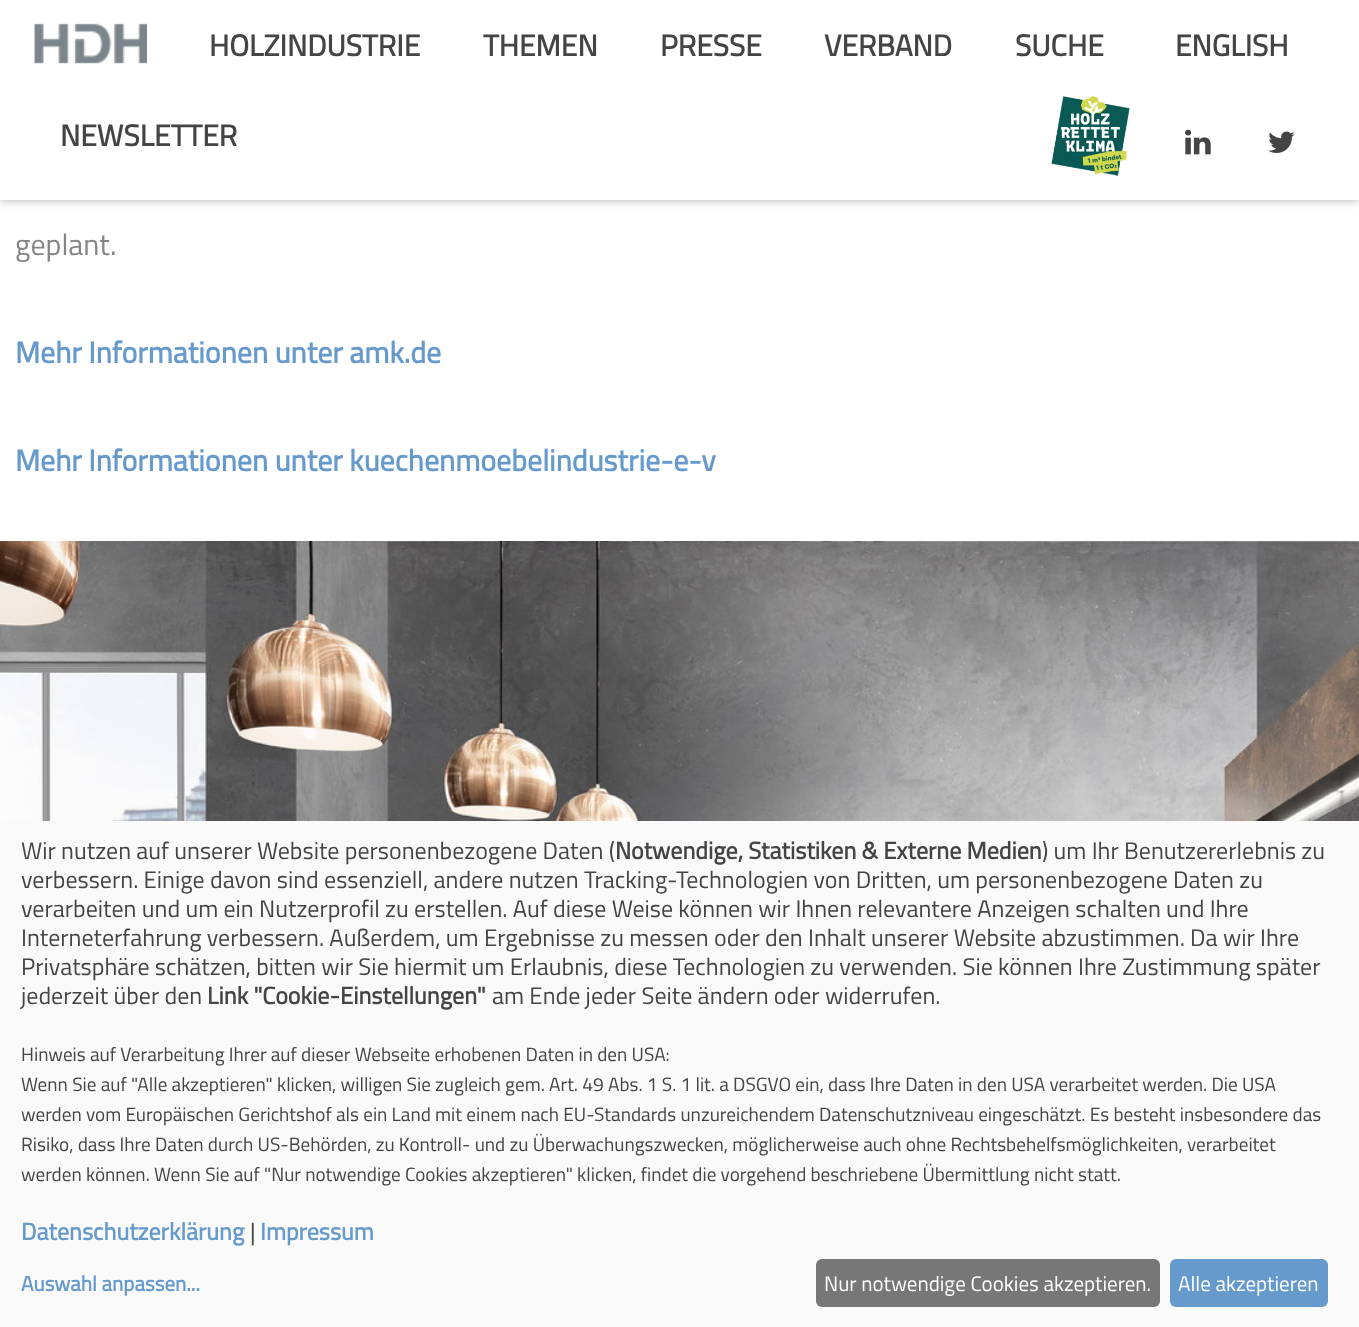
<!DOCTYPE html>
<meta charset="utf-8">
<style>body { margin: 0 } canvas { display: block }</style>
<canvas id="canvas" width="1359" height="1327"></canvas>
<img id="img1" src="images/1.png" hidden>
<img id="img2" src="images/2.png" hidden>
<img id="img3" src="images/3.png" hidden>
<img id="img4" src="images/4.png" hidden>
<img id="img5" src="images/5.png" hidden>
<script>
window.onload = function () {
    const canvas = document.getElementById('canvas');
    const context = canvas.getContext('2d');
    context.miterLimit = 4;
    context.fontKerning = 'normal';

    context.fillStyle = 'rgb(255, 255, 255)';
    context.fillRect(0, 0, 1359, 1327);
    context.save();
    context.beginPath();
    context.moveTo(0, 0);
    context.lineTo(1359, 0);
    context.lineTo(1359, 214);
    context.lineTo(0, 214);
    context.closePath();
    context.moveTo(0, 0);
    context.lineTo(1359, 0);
    context.lineTo(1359, 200);
    context.lineTo(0, 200);
    context.closePath();
    context.clip('evenodd');
    context.fillStyle = 'rgb(189, 189, 189)';
    context.filter = 'blur(4px)';
    context.beginPath();
    context.rect(0, 2, 1359, 199);
    context.fill();
    context.filter = 'none';
    context.restore();
    context.fillStyle = 'rgba(255, 255, 255, 0.85)';
    context.fillRect(0, 199, 1359, 1);
    context.drawImage(document.getElementById('img1'), 34, 23, 113, 41);
    context.drawImage(document.getElementById('img2'), 1051, 96, 79, 80);
    context.drawImage(document.getElementById('img3'), 1185, 129, 26, 26);
    context.drawImage(document.getElementById('img4'), 1268, 131, 27, 22);
    context.drawImage(document.getElementById('img5'), 0, 541, 1359, 280);
    context.fillStyle = 'rgb(250, 250, 250)';
    context.fillRect(0, 821, 1359, 506);
    context.fillStyle = 'rgb(119, 119, 119)';
    context.beginPath();
    context.roundRect(816, 1259, 344, 48, 6);
    context.fill();
    context.fillStyle = 'rgb(102, 153, 204)';
    context.beginPath();
    context.roundRect(1170, 1259, 158, 48, 6);
    context.fill();
    context.font = 'bold 30px Titillium Web';
    context.fillStyle = 'rgb(68, 68, 68)';
    context.fillText('HOLZINDUSTRIE', 209, 56);
    context.fillText('THEMEN', 483, 56);
    context.fillText('PRESSE', 660, 56);
    context.fillText('VERBAND', 824, 56);
    context.fillText('SUCHE', 1015, 56);
    context.fillText('ENGLISH', 1175, 56);
    context.fillText('NEWSLETTER', 60, 146);
    context.font = '30px Titillium Web';
    context.fillStyle = 'rgb(132, 132, 132)';
    context.fillText('geplant.', 15, 255);
    context.font = 'bold 30px Titillium Web';
    context.fillStyle = 'rgb(102, 153, 204)';
    context.fillText('Mehr Informationen unter amk.de', 15, 363);
    context.fillText('Mehr Informationen unter kuechenmoebelindustrie-e-v', 15, 471);
    context.font = '24px Titillium Web';
    context.fillStyle = 'rgb(68, 68, 68)';
    context.fillText(') um Ihr Benutzererlebnis zu', 1042, 859);
    context.fillText('verbessern. Einige davon sind essenziell, andere nutzen Tracking-Technologien von Dritten, um personenbezogene Daten zu', 21, 888);
    context.fillText('verarbeiten und um ein Nutzerprofil zu erstellen. Auf diese Weise können wir Ihnen relevantere Anzeigen schalten und Ihre', 21, 917);
    context.fillText('Interneterfahrung verbessern. Außerdem, um Ergebnisse zu messen oder den Inhalt unserer Website abzustimmen. Da wir Ihre', 21, 946);
    context.fillText('Privatsphäre schätzen, bitten wir Sie hiermit um Erlaubnis, diese Technologien zu verwenden. Sie können Ihre Zustimmung später', 21, 975);
    context.fillText('jederzeit über den', 21, 1004);
    context.font = 'bold 24px Titillium Web';
    context.fillText('Link "Cookie-Einstellungen"', 207, 1004);
    context.font = '24px Titillium Web';
    context.fillText('am Ende jeder Seite ändern oder widerrufen.', 492, 1004);
    context.font = '19.2px Titillium Web';
    context.fillText('Hinweis auf Verarbeitung Ihrer auf dieser Webseite erhobenen Daten in den USA:', 21, 1061);
    context.fillText('Wenn Sie auf "Alle akzeptieren" klicken, willigen Sie zugleich gem. Art. 49 Abs. 1 S. 1 lit. a DSGVO ein, dass Ihre Daten in den USA verarbeitet werden. Die USA', 21, 1091);
    context.fillText('werden vom Europäischen Gerichtshof als ein Land mit einem nach EU-Standards unzureichendem Datenschutzniveau eingeschätzt. Es besteht insbesondere das', 21, 1121);
    context.fillText('Risiko, dass Ihre Daten durch US-Behörden, zu Kontroll- und zu Überwachungszwecken, möglicherweise auch ohne Rechtsbehelfsmöglichkeiten, verarbeitet', 21, 1151);
    context.fillText('werden können. Wenn Sie auf "Nur notwendige Cookies akzeptieren" klicken, findet die vorgehend beschriebene Übermittlung nicht statt.', 21, 1181);
    context.font = 'bold 24px Titillium Web';
    context.fillStyle = 'rgb(102, 153, 204)';
    context.fillText('Datenschutzerklärung', 21, 1240);
    context.font = '24px Titillium Web';
    context.fillStyle = 'rgb(68, 68, 68)';
    context.fillText('|', 250, 1240);
    context.font = 'bold 24px Titillium Web';
    context.fillStyle = 'rgb(102, 153, 204)';
    context.fillText('Impressum', 260, 1240);
    context.font = '24px Titillium Web';
    context.fillStyle = 'rgb(68, 68, 68)';
    context.fillText('Wir nutzen auf unserer Website personenbezogene Daten (', 21, 859);
    context.font = 'bold 24px Titillium Web';
    context.fillText('Notwendige, Statistiken & Externe Medien', 615, 859);
    context.font = 'bold 21px Titillium Web';
    context.fillStyle = 'rgb(102, 153, 204)';
    context.fillText('Auswahl anpassen...', 21, 1291);
    context.font = '21px Titillium Web';
    context.fillStyle = 'rgb(255, 255, 255)';
    context.fillText('Nur notwendige Cookies akzeptieren.', 824, 1291);
    context.fillText('Alle akzeptieren', 1178, 1291);
};
</script>
